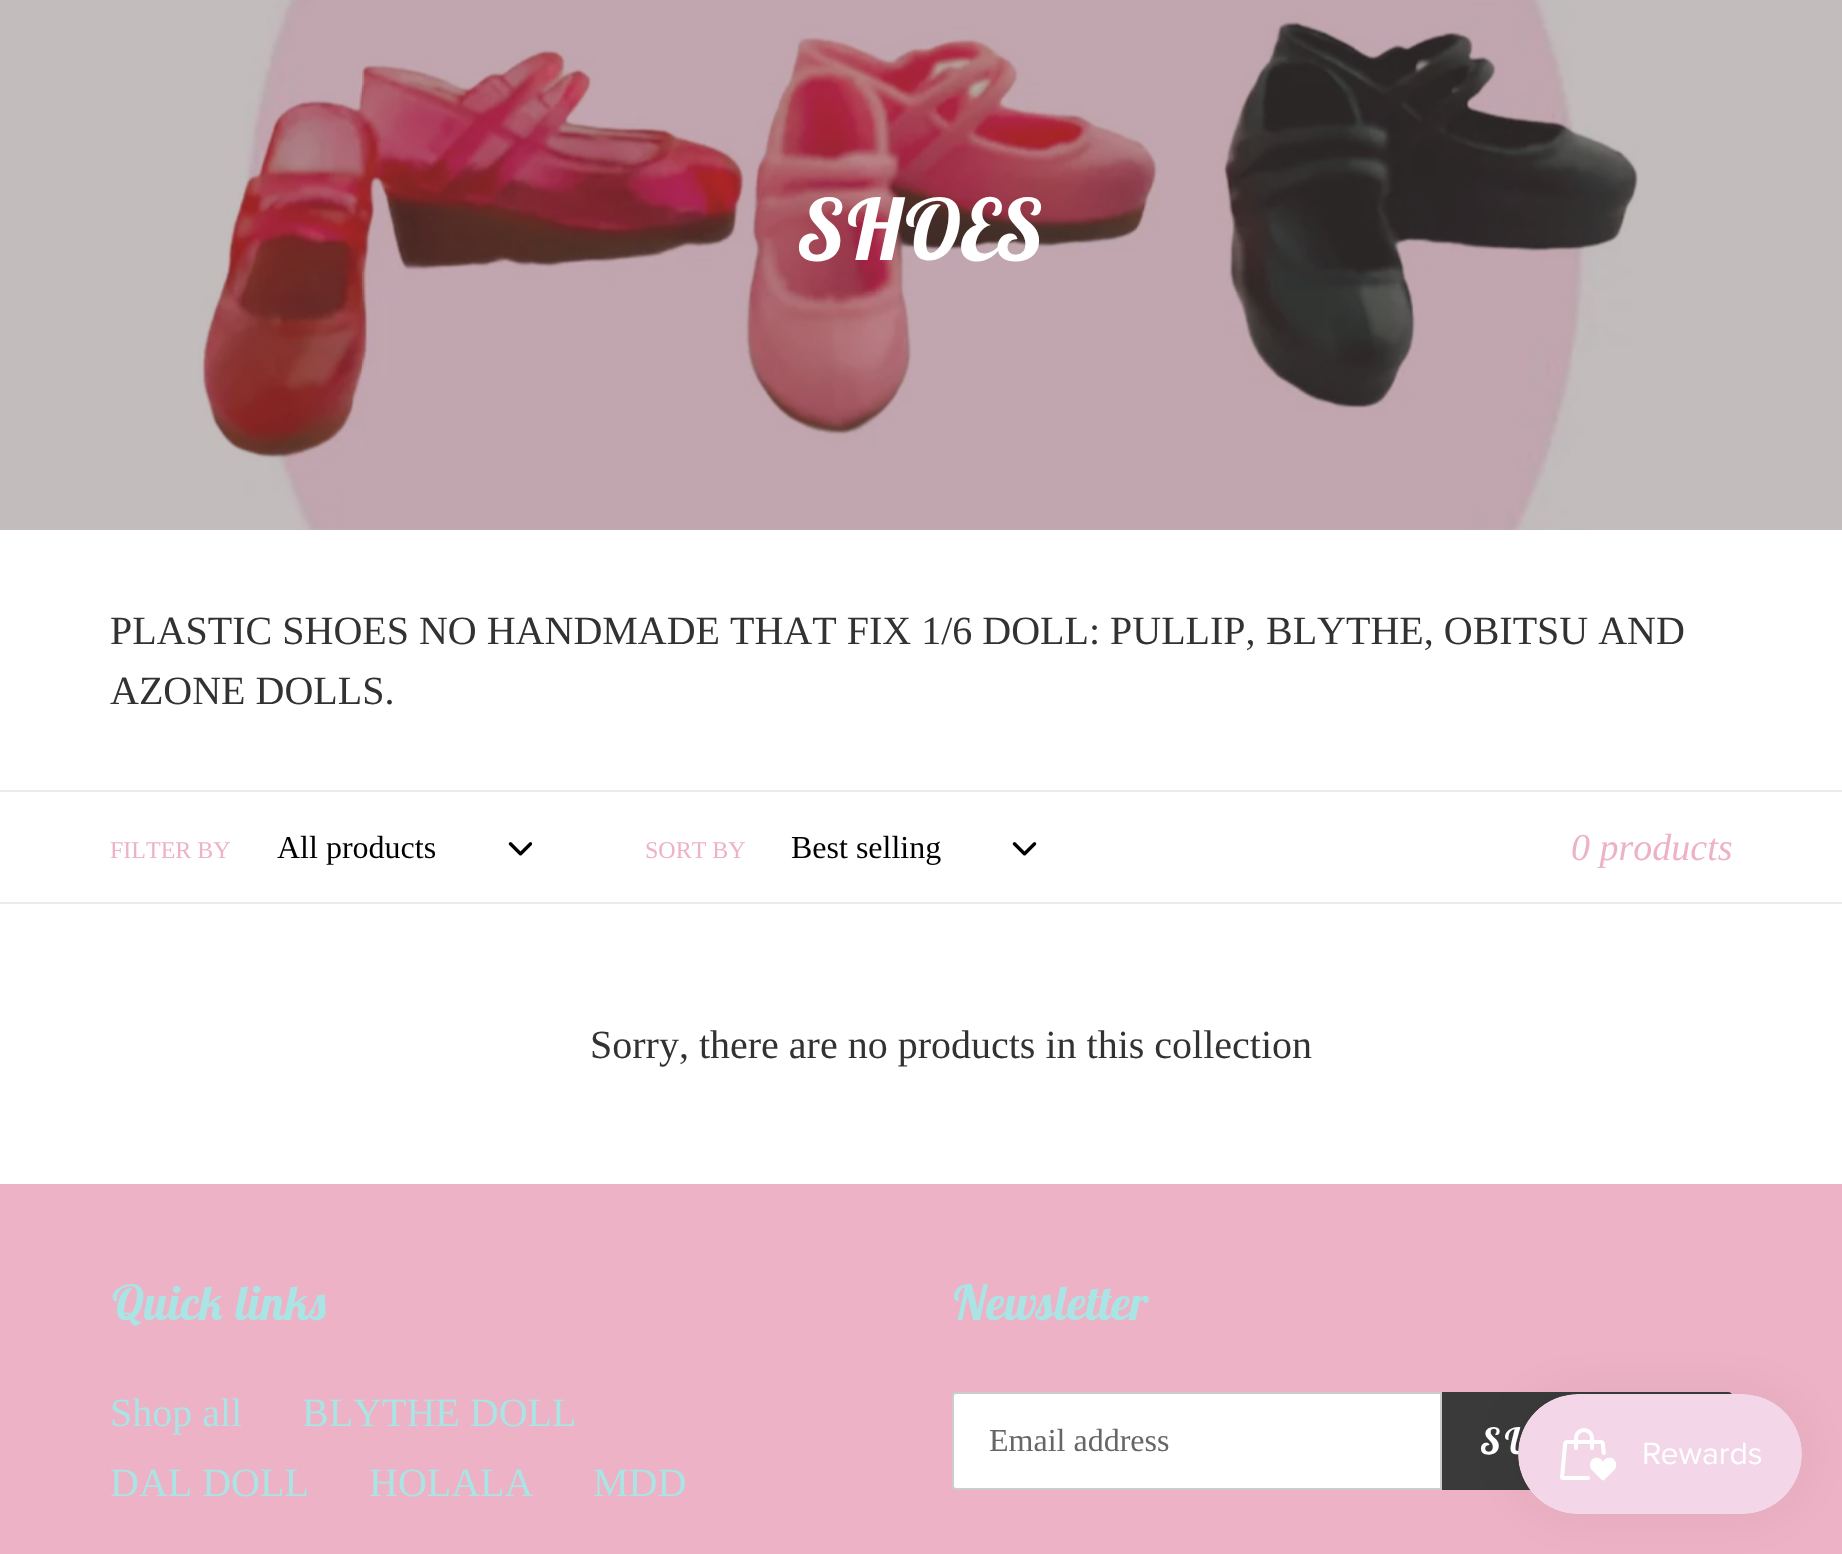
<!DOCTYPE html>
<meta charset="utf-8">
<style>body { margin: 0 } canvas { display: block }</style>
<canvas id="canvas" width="1842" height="1554"></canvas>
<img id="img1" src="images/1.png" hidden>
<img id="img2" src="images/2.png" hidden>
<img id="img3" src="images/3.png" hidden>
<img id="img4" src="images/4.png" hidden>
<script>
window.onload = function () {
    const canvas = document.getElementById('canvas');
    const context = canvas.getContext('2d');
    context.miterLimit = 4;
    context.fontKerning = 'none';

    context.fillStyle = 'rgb(255, 255, 255)';
    context.fillRect(0, 0, 1842, 1554);
    context.fillStyle = 'rgb(195, 188, 188)';
    context.fillRect(0, 0, 1842, 530);
    context.drawImage(document.getElementById('img1'), 198, 0, 1440, 530);
    context.fillStyle = 'rgb(235, 235, 235)';
    context.fillRect(0, 790, 1842, 2);
    context.fillRect(0, 902, 1842, 2);
    context.drawImage(document.getElementById('img2'), 508, 842, 24, 14);
    context.drawImage(document.getElementById('img3'), 1012, 842, 25, 14);
    context.fillStyle = 'rgb(237, 178, 197)';
    context.fillRect(0, 1184, 1842, 370);
    context.fillStyle = 'rgb(255, 255, 255)';
    context.beginPath();
    context.roundRect(953, 1393, 488, 96, [3, 0, 0, 3]);
    context.fill();
    context.strokeStyle = 'rgb(204, 204, 204)';
    context.lineWidth = 2;
    context.stroke();
    context.fillStyle = 'rgb(58, 58, 58)';
    context.beginPath();
    context.roundRect(1442, 1392, 290, 98, [0, 4, 4, 0]);
    context.fill();
    context.fillStyle = 'rgba(0, 0, 0, 0.05)';
    context.filter = 'blur(25px)';
    context.beginPath();
    context.roundRect(1518, 1394, 284, 120, 60);
    context.fill();
    context.filter = 'none';
    context.font = 'italic bold 84px Lobster Two';
    context.fillStyle = 'rgb(255, 255, 255)';
    context.fillText('SHOES', 799, 260);
    context.font = '40px Liberation Serif';
    context.fillStyle = 'rgb(51, 50, 50)';
    context.fillText('PLASTIC SHOES NO HANDMADE THAT FIX 1/6 DOLL: PULLIP,', 110, 644);
    context.fillText('BLYTHE, OBITSU AND', 1266, 644);
    context.fillText('AZONE DOLLS.', 110, 704);
    context.font = '24px Liberation Serif';
    context.fillStyle = 'rgb(237, 178, 197)';
    context.fillText('FILTER BY', 110, 858);
    context.font = '32px Liberation Serif';
    context.fillStyle = 'rgb(0, 0, 0)';
    context.fillText('All products', 277, 858);
    context.font = '24px Liberation Serif';
    context.fillStyle = 'rgb(237, 178, 197)';
    context.fillText('SORT BY', 645, 858);
    context.font = '32px Liberation Serif';
    context.fillStyle = 'rgb(0, 0, 0)';
    context.fillText('Best selling', 791, 858);
    context.font = 'italic 38px Liberation Serif';
    context.fillStyle = 'rgb(237, 178, 197)';
    context.fillText('0 products', 1571, 860);
    context.font = '40px Liberation Serif';
    context.fillStyle = 'rgb(51, 50, 50)';
    context.fillText('Sorry, there are no products in this collection', 590, 1058);
    context.font = 'italic bold 48px Lobster Two';
    context.fillStyle = 'rgb(170, 228, 228)';
    context.fillText('Quick links', 110, 1320);
    context.font = '40px Liberation Serif';
    context.fillText('Shop all', 110, 1426);
    context.fillText('BLYTHE DOLL', 302, 1426);
    context.fillText('DAL DOLL', 110, 1496);
    context.fillText('HOLALA', 369, 1496);
    context.fillText('MDD', 593, 1496);
    context.font = 'italic bold 48px Lobster Two';
    context.fillText('Newsletter', 951, 1320);
    context.font = '32px Liberation Serif';
    context.fillStyle = 'rgb(102, 102, 102)';
    context.fillText('Email address', 989, 1451);
    context.letterSpacing = '3px';
    context.font = 'italic bold 36px Lobster Two';
    context.fillStyle = 'rgb(255, 255, 255)';
    context.fillText('SU', 1481, 1454);
    context.drawImage(document.getElementById('img4'), 1518, 1394, 284, 120);
};
</script>
